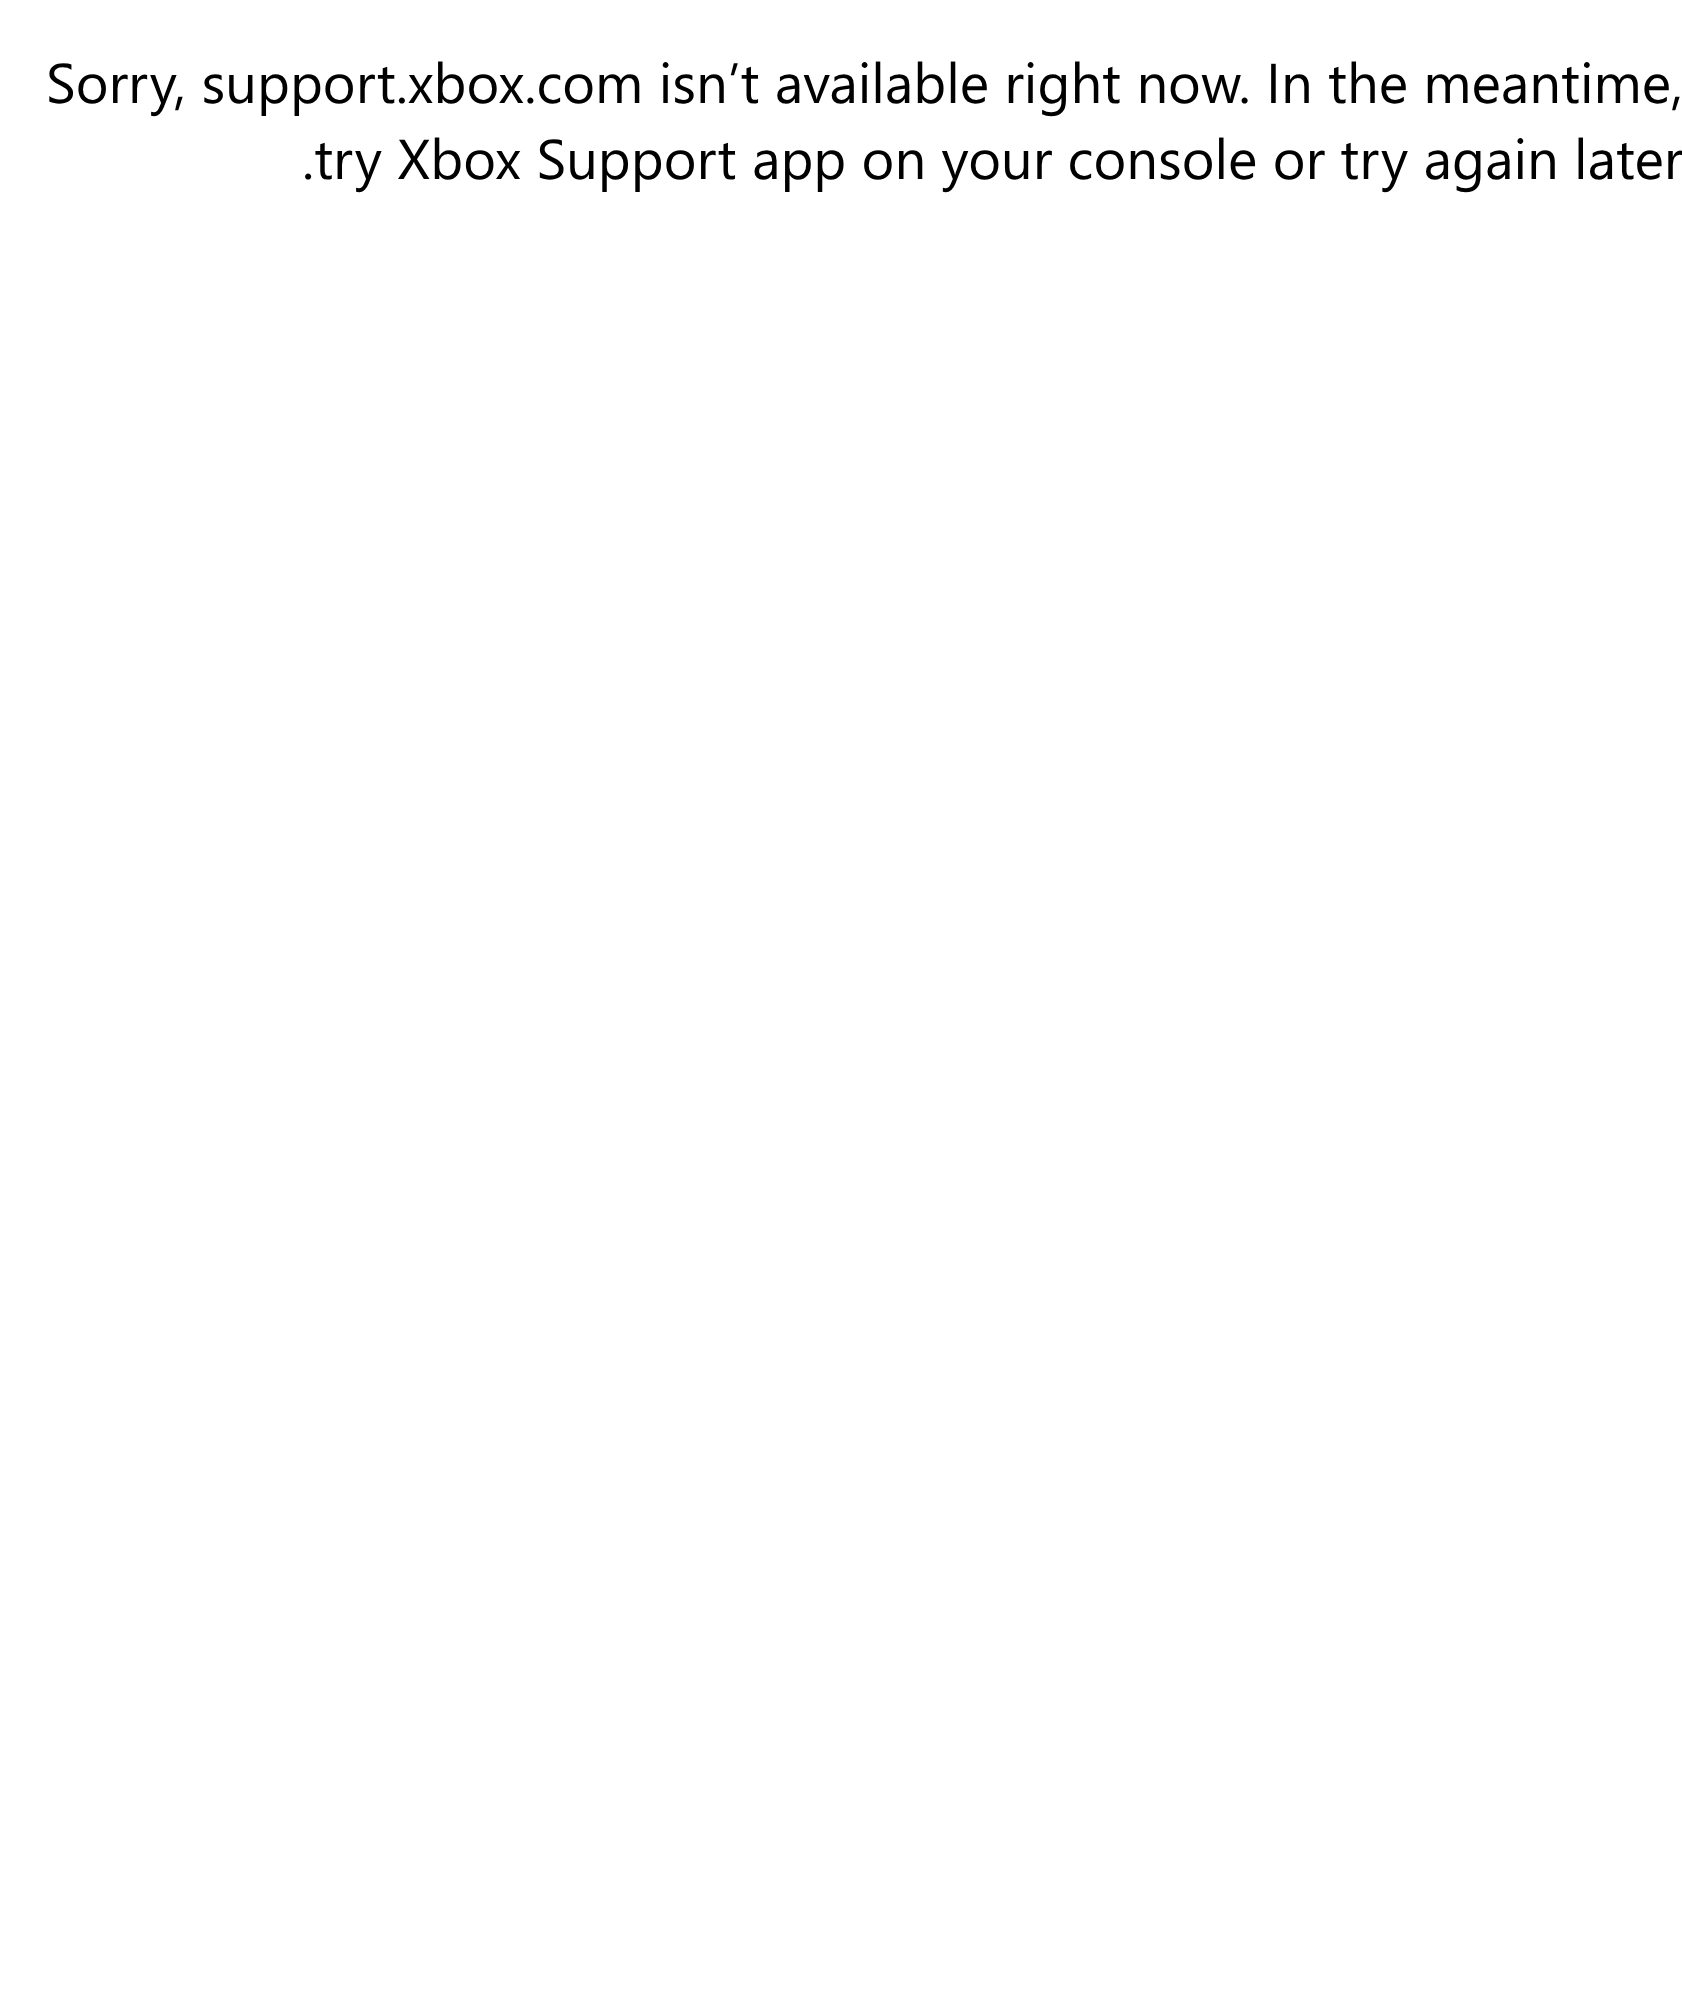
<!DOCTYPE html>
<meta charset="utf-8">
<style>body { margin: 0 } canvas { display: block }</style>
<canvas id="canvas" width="1682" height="1991"></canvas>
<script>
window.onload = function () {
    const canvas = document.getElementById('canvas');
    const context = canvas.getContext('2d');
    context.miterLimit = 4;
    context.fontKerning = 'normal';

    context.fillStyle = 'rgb(255, 255, 255)';
    context.fillRect(0, 0, 1682, 1991);
    context.font = '56px Segoe UI';
    context.fillStyle = 'rgb(0, 0, 0)';
    context.fillText('Sorry, support.xbox.com isn’t available right now. In the meantime,', 46, 103);
    context.fillText('.try Xbox Support app on your console or try again later', 302, 179);
};
</script>
